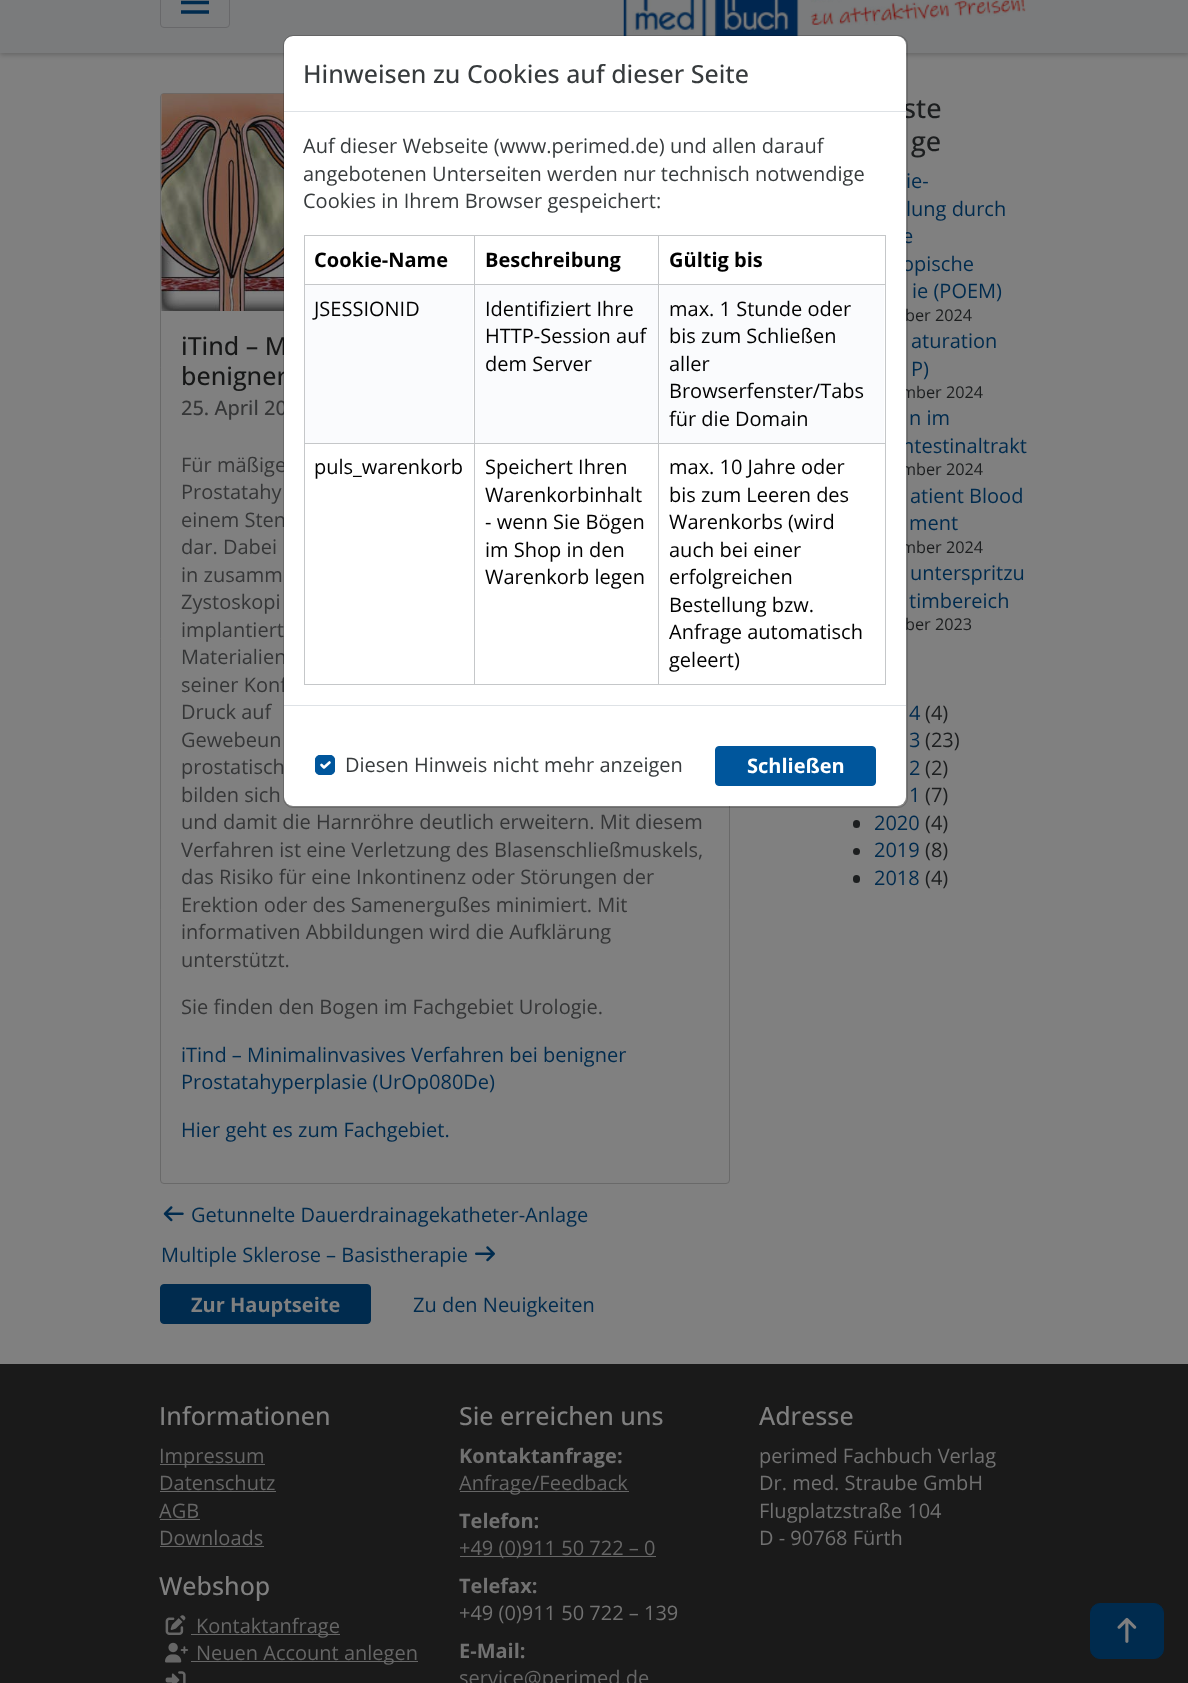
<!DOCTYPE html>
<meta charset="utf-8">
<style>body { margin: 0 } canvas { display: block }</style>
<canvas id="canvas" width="1188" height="1683"></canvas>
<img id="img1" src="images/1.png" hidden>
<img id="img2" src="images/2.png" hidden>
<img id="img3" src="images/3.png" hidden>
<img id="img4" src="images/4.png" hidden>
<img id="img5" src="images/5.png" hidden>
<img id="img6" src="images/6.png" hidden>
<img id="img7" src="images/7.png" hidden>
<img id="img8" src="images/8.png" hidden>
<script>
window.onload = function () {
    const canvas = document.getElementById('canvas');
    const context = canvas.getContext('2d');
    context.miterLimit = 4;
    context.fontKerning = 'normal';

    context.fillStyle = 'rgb(128, 128, 128)';
    context.fillRect(0, 0, 1188, 1683);
    context.fillStyle = 'rgba(0, 0, 0, 0.2)';
    context.filter = 'blur(2.5px)';
    context.beginPath();
    context.rect(0, -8, 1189, 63);
    context.fill();
    context.filter = 'none';
    context.fillStyle = 'rgb(122, 123, 124)';
    context.fillRect(0, 0, 1188, 53);
    context.beginPath();
    context.roundRect(160.5, -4.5, 69, 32, 3.5);
    context.strokeStyle = 'rgb(104, 104, 106)';
    context.stroke();
    context.beginPath();
    context.moveTo(181, -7);
    context.lineTo(209, -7);
    context.moveTo(181, 2.5);
    context.lineTo(209, 2.5);
    context.moveTo(181, 12);
    context.lineTo(209, 12);
    context.strokeStyle = 'rgb(0, 43, 78)';
    context.lineWidth = 3.5;
    context.stroke();
    context.drawImage(document.getElementById('img1'), 623, 0, 403, 36);
    context.beginPath();
    context.roundRect(160.5, 93.5, 569, 1090, 3.5);
    context.strokeStyle = 'rgb(105, 105, 105)';
    context.lineWidth = 1;
    context.stroke();
    context.drawImage(document.getElementById('img2'), 161, 93, 123, 218);
    context.drawImage(document.getElementById('img3'), 163, 1206, 21, 16);
    context.drawImage(document.getElementById('img4'), 475, 1246, 20, 16);
    context.fillStyle = 'rgb(0, 43, 78)';
    context.beginPath();
    context.roundRect(160.5, 1284.5, 210, 39, 3.5);
    context.fill();
    context.strokeStyle = 'rgb(0, 43, 78)';
    context.stroke();
    context.fillStyle = 'rgb(28, 30, 31)';
    context.beginPath();
    context.roundRect(853, 820, 7, 8, 3.5);
    context.fill();
    context.beginPath();
    context.arc(856.5, 851.5, 3.5, 0, 2 * Math.PI);
    context.fill();
    context.beginPath();
    context.roundRect(853, 875, 7, 8, 3.5);
    context.fill();
    context.fillStyle = 'rgb(26, 26, 26)';
    context.fillRect(0, 1364, 1188, 319);
    context.fillStyle = 'rgb(102, 102, 102)';
    context.fillRect(160, 1464, 105, 1);
    context.fillRect(160, 1491, 116, 1);
    context.fillRect(160, 1519, 40, 1);
    context.fillRect(160, 1546, 104, 1);
    context.drawImage(document.getElementById('img5'), 165, 1615, 21, 20);
    context.fillRect(191, 1634, 149, 1);
    context.drawImage(document.getElementById('img6'), 165, 1642, 24, 21);
    context.fillRect(191, 1661, 227, 1);
    context.drawImage(document.getElementById('img7'), 165, 1671, 21, 12);
    context.fillRect(460, 1491, 169, 1);
    context.fillRect(460, 1556, 196, 1);
    context.fillStyle = 'rgb(0, 43, 78)';
    context.beginPath();
    context.roundRect(1090.5, 1603.5, 73, 55, 9.5);
    context.fill();
    context.stroke();
    context.drawImage(document.getElementById('img8'), 1117, 1617, 20, 26);
    context.font = '500 25px Open Sans';
    context.fillStyle = 'rgb(22, 23, 23)';
    context.fillText('iTind – M', 181, 355);
    context.fillText('benigner', 181, 385);
    context.font = '500 20px Open Sans';
    context.fillStyle = 'rgb(53, 54, 55)';
    context.fillText('25. April 20', 181, 415);
    context.font = '20px Open Sans';
    context.fillText('Für mäßige', 181, 472);
    context.fillText('Prostatahy', 181, 499);
    context.fillText('einem Sten', 181, 527);
    context.fillText('dar. Dabei', 181, 554);
    context.fillText('in zusamm', 181, 582);
    context.fillText('Zystoskopi', 181, 609);
    context.fillText('implantiert', 181, 637);
    context.fillText('Materialien', 181, 664);
    context.fillText('seiner Konf', 181, 692);
    context.fillText('Druck auf', 181, 719);
    context.fillText('Gewebeun', 181, 747);
    context.fillText('prostatisch', 181, 774);
    context.fillText('bilden sich', 181, 802);
    context.fillText('und damit die Harnröhre deutlich erweitern. Mit diesem', 181, 829);
    context.fillText('Verfahren ist eine Verletzung des Blasenschließmuskels,', 181, 857);
    context.fillText('das Risiko für eine Inkontinenz oder Störungen der', 181, 884);
    context.fillText('Erektion oder des Samenergußes minimiert. Mit', 181, 912);
    context.fillText('informativen Abbildungen wird die Aufklärung', 181, 939);
    context.fillText('unterstützt.', 181, 967);
    context.fillText('Sie finden den Bogen im Fachgebiet Urologie.', 181, 1014);
    context.fillStyle = 'rgb(0, 43, 78)';
    context.fillText('iTind – Minimalinvasives Verfahren bei benigner', 181, 1062);
    context.fillText('Prostatahyperplasie (UrOp080De)', 181, 1089);
    context.fillText('Hier geht es zum Fachgebiet.', 181, 1137);
    context.fillText('Getunnelte Dauerdrainagekatheter-Anlage', 191, 1222);
    context.fillText('Multiple Sklerose – Basistherapie', 161, 1262);
    context.font = 'bold 20px Open Sans';
    context.fillStyle = 'rgb(128, 128, 128)';
    context.fillText('Zur Hauptseite', 191, 1312);
    context.font = '20px Open Sans';
    context.fillStyle = 'rgb(0, 43, 78)';
    context.fillText('Zu den Neuigkeiten', 413, 1312);
    context.font = '500 27px Open Sans';
    context.fillStyle = 'rgb(28, 30, 31)';
    context.fillText('ste', 903, 118);
    context.fillText('ge', 911, 151);
    context.font = '20px Open Sans';
    context.fillStyle = 'rgb(0, 43, 78)';
    context.fillText('ie-', 906, 188);
    context.fillText('lung durch', 906, 216);
    context.fillText('e', 902, 243);
    context.fillText('opische', 902, 271);
    context.fillText('ie (POEM)', 912, 298);
    context.font = '16.25px Open Sans';
    context.fillStyle = 'rgb(28, 30, 31)';
    context.fillText('ber 2024', 905, 321);
    context.font = '20px Open Sans';
    context.fillStyle = 'rgb(0, 43, 78)';
    context.fillText('aturation', 911, 348);
    context.fillText('P)', 911, 376);
    context.font = '16.25px Open Sans';
    context.fillStyle = 'rgb(28, 30, 31)';
    context.fillText('mber 2024', 901, 398);
    context.font = '20px Open Sans';
    context.fillStyle = 'rgb(0, 43, 78)';
    context.fillText('n im', 909, 425);
    context.fillText('ntestinaltrakt', 902, 453);
    context.font = '16.25px Open Sans';
    context.fillStyle = 'rgb(28, 30, 31)';
    context.fillText('mber 2024', 901, 475);
    context.font = '20px Open Sans';
    context.fillStyle = 'rgb(0, 43, 78)';
    context.fillText('atient Blood', 910, 503);
    context.fillText('ment', 909, 530);
    context.font = '16.25px Open Sans';
    context.fillStyle = 'rgb(28, 30, 31)';
    context.fillText('mber 2024', 901, 553);
    context.fillStyle = 'rgb(255, 255, 255)';
    context.beginPath();
    context.roundRect(284, 36, 622, 770, 9);
    context.fill();
    context.font = '20px Open Sans';
    context.fillStyle = 'rgb(0, 43, 78)';
    context.fillText('unterspritzu', 910, 580);
    context.fillText('timbereich', 909, 608);
    context.font = '16.25px Open Sans';
    context.fillStyle = 'rgb(28, 30, 31)';
    context.fillText('ber 2023', 905, 630);
    context.beginPath();
    context.roundRect(283.5, 35.5, 624, 772, 9.5);
    context.strokeStyle = 'rgba(0, 0, 0, 0.18)';
    context.stroke();
    context.font = '20px Open Sans';
    context.fillStyle = 'rgb(0, 0, 0)';
    context.fillText('geleert)', 669, 667);
    context.fillText('Anfrage automatisch', 669, 639);
    context.fillText('Bestellung bzw.', 669, 612);
    context.fillText('erfolgreichen', 669, 584);
    context.fillText('auch bei einer', 669, 557);
    context.fillText('Warenkorbs (wird', 669, 529);
    context.fillText('bis zum Leeren des', 669, 502);
    context.fillText('max. 10 Jahre oder', 669, 474);
    context.fillText('Warenkorb legen', 485, 584);
    context.fillText('im Shop in den', 485, 557);
    context.fillText('- wenn Sie Bögen', 485, 529);
    context.fillText('Warenkorbinhalt', 485, 502);
    context.fillText('Speichert Ihren', 485, 474);
    context.fillText('puls_warenkorb', 314, 474);
    context.fillStyle = 'rgb(250, 251, 253)';
    context.fillRect(660, 285, 224, 158);
    context.fillStyle = 'rgb(0, 0, 0)';
    context.fillText('für die Domain', 669, 426);
    context.fillText('Browserfenster/Tabs', 669, 398);
    context.fillText('aller', 669, 371);
    context.fillText('bis zum Schließen', 669, 343);
    context.fillText('max. 1 Stunde oder', 669, 316);
    context.fillStyle = 'rgb(250, 251, 253)';
    context.fillRect(475, 285, 183, 158);
    context.fillStyle = 'rgb(0, 0, 0)';
    context.fillText('dem Server', 485, 371);
    context.fillText('HTTP-Session auf', 485, 343);
    context.fillText('Identifiziert Ihre', 485, 316);
    context.fillStyle = 'rgb(250, 251, 253)';
    context.fillRect(305, 285, 168, 158);
    context.fillStyle = 'rgb(0, 0, 0)';
    context.fillText('JSESSIONID', 314, 316);
    context.font = 'bold 20px Open Sans';
    context.fillText('Gültig bis', 669, 267);
    context.fillText('Beschreibung', 485, 267);
    context.fillText('Cookie-Name', 314, 267);
    context.fillStyle = 'rgb(197, 199, 201)';
    context.fillRect(304, 235, 582, 1);
    context.fillRect(304, 284, 582, 1);
    context.fillRect(304, 684, 582, 1);
    context.fillRect(304, 443, 582, 1);
    context.fillRect(304, 235, 1, 450);
    context.fillRect(474, 235, 1, 450);
    context.fillRect(658, 235, 1, 450);
    context.fillRect(885, 235, 1, 450);
    context.font = '20px Open Sans';
    context.fillStyle = 'rgb(55, 59, 61)';
    context.fillText('Cookies in Ihrem Browser gespeichert:', 303, 208);
    context.fillText('angebotenen Unterseiten werden nur technisch notwendige', 303, 181);
    context.fillText('Auf dieser Webseite (www.perimed.de) und allen darauf', 303, 153);
    context.fillStyle = 'rgb(0, 86, 156)';
    context.beginPath();
    context.roundRect(715.5, 746.5, 160, 39, 3.5);
    context.fill();
    context.strokeStyle = 'rgb(0, 86, 156)';
    context.stroke();
    context.font = 'bold 20px Open Sans';
    context.fillStyle = 'rgb(255, 255, 255)';
    context.fillText('Schließen', 747, 773);
    context.font = '20px Open Sans';
    context.fillStyle = 'rgb(55, 59, 61)';
    context.fillText('Diesen Hinweis nicht mehr anzeigen', 345, 772);
    context.fillStyle = 'rgb(0, 86, 156)';
    context.beginPath();
    context.roundRect(315, 755, 20, 20, 5);
    context.fill();
    context.beginPath();
    context.moveTo(321.5, 765);
    context.lineTo(324, 767.5);
    context.lineTo(329.5, 762.5);
    context.strokeStyle = 'rgb(255, 255, 255)';
    context.lineWidth = 2.6;
    context.lineCap = 'round';
    context.lineJoin = 'round';
    context.stroke();
    context.beginPath();
    context.roundRect(315.5, 755.5, 19, 19, 4.5);
    context.strokeStyle = 'rgb(0, 86, 156)';
    context.lineWidth = 1;
    context.lineJoin = 'miter';
    context.stroke();
    context.fillStyle = 'rgb(222, 226, 230)';
    context.fillRect(284, 705, 622, 1);
    context.font = '500 25px Open Sans';
    context.fillStyle = 'rgb(55, 59, 61)';
    context.fillText('Hinweisen zu Cookies auf dieser Seite', 303, 83);
    context.fillStyle = 'rgb(222, 226, 230)';
    context.fillRect(284, 111, 622, 1);
    context.font = '20px Open Sans';
    context.fillStyle = 'rgb(0, 43, 78)';
    context.fillText('4', 909, 720);
    context.fillStyle = 'rgb(28, 30, 31)';
    context.fillText('(4)', 925, 720);
    context.fillStyle = 'rgb(0, 43, 78)';
    context.fillText('3', 909, 747);
    context.fillStyle = 'rgb(28, 30, 31)';
    context.fillText('(23)', 925, 747);
    context.fillStyle = 'rgb(0, 43, 78)';
    context.fillText('2', 909, 775);
    context.fillStyle = 'rgb(28, 30, 31)';
    context.fillText('(2)', 925, 775);
    context.fillStyle = 'rgb(0, 43, 78)';
    context.fillText('1', 909, 802);
    context.fillStyle = 'rgb(28, 30, 31)';
    context.fillText('(7)', 925, 802);
    context.fillStyle = 'rgb(0, 43, 78)';
    context.fillText('2020', 874, 830);
    context.fillStyle = 'rgb(28, 30, 31)';
    context.fillText('(4)', 925, 830);
    context.fillStyle = 'rgb(0, 43, 78)';
    context.fillText('2019', 874, 857);
    context.fillStyle = 'rgb(28, 30, 31)';
    context.fillText('(8)', 925, 857);
    context.fillStyle = 'rgb(0, 43, 78)';
    context.fillText('2018', 874, 885);
    context.fillStyle = 'rgb(28, 30, 31)';
    context.fillText('(4)', 925, 885);
    context.font = '500 25px Open Sans';
    context.fillStyle = 'rgb(128, 128, 128)';
    context.fillText('Informationen', 159, 1425);
    context.font = '20px Open Sans';
    context.fillStyle = 'rgb(102, 102, 102)';
    context.fillText('Impressum', 159, 1463);
    context.fillText('Datenschutz', 159, 1490);
    context.fillText('AGB', 159, 1518);
    context.fillText('Downloads', 159, 1545);
    context.font = '500 25px Open Sans';
    context.fillStyle = 'rgb(128, 128, 128)';
    context.fillText('Webshop', 159, 1595);
    context.font = '20px Open Sans';
    context.fillStyle = 'rgb(102, 102, 102)';
    context.fillText('Kontaktanfrage', 196, 1633);
    context.fillText('Neuen Account anlegen', 196, 1660);
    context.font = '500 25px Open Sans';
    context.fillStyle = 'rgb(128, 128, 128)';
    context.fillText('Sie erreichen uns', 459, 1425);
    context.font = 'bold 20px Open Sans';
    context.fillStyle = 'rgb(113, 113, 113)';
    context.fillText('Kontaktanfrage:', 459, 1463);
    context.font = '20px Open Sans';
    context.fillStyle = 'rgb(102, 102, 102)';
    context.fillText('Anfrage/Feedback', 459, 1490);
    context.font = 'bold 20px Open Sans';
    context.fillStyle = 'rgb(113, 113, 113)';
    context.fillText('Telefon:', 459, 1528);
    context.font = '20px Open Sans';
    context.fillStyle = 'rgb(102, 102, 102)';
    context.fillText('+49 (0)911 50 722 – 0', 459, 1555);
    context.font = 'bold 20px Open Sans';
    context.fillStyle = 'rgb(113, 113, 113)';
    context.fillText('Telefax:', 459, 1593);
    context.font = '20px Open Sans';
    context.fillText('+49 (0)911 50 722 – 139', 459, 1620);
    context.font = 'bold 20px Open Sans';
    context.fillText('E-Mail:', 459, 1658);
    context.font = '20px Open Sans';
    context.fillStyle = 'rgb(102, 102, 102)';
    context.fillText('service@perimed.de', 459, 1685);
    context.font = '500 25px Open Sans';
    context.fillStyle = 'rgb(128, 128, 128)';
    context.fillText('Adresse', 759, 1425);
    context.font = '20px Open Sans';
    context.fillStyle = 'rgb(113, 113, 113)';
    context.fillText('perimed Fachbuch Verlag', 759, 1463);
    context.fillText('Dr. med. Straube GmbH', 759, 1490);
    context.fillText('Flugplatzstraße 104', 759, 1518);
    context.fillText('D - 90768 Fürth', 759, 1545);
};
</script>
